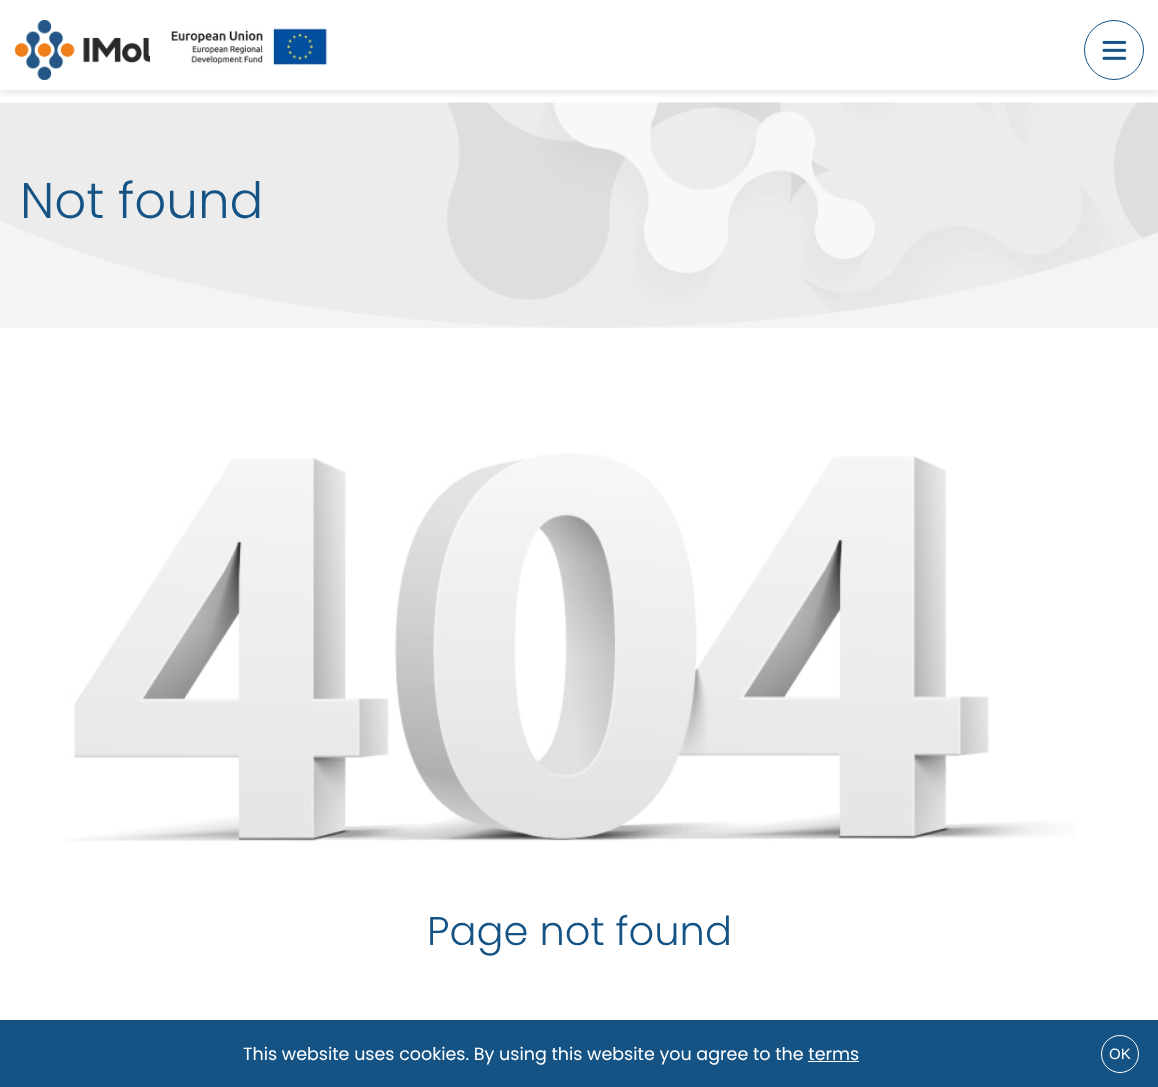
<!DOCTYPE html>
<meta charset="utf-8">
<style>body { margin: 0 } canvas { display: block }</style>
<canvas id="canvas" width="1158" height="1087"></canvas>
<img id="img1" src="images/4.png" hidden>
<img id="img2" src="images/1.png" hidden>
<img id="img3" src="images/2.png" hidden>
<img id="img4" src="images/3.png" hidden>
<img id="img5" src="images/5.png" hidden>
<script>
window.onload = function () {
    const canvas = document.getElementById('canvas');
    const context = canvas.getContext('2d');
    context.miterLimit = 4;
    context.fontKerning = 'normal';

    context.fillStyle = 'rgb(255, 255, 255)';
    context.fillRect(0, 0, 1158, 1087);
    context.fillStyle = 'rgb(244, 244, 244)';
    context.fillRect(0, 220, 1158, 108);
    context.drawImage(document.getElementById('img1'), 0, 102, 1158, 226);
    context.save();
    context.beginPath();
    context.rect(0, 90, 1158, 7);
    context.clip();
    context.fillStyle = 'rgba(0, 0, 0, 0.1)';
    context.filter = 'blur(4.5px)';
    context.beginPath();
    context.rect(0, 3, 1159, 90);
    context.fill();
    context.filter = 'none';
    context.restore();
    context.drawImage(document.getElementById('img2'), 15, 20, 135, 60);
    context.drawImage(document.getElementById('img3'), 171, 24, 157, 43);
    context.beginPath();
    context.arc(1114, 50, 29.5, 0, 2 * Math.PI);
    context.strokeStyle = 'rgb(21, 83, 133)';
    context.stroke();
    context.drawImage(document.getElementById('img4'), 1102, 40, 24, 20);
    context.drawImage(document.getElementById('img5'), 65, 453, 1011, 389);
    context.fillStyle = 'rgb(21, 83, 132)';
    context.fillRect(0, 1020, 1158, 67);
    context.fillStyle = 'rgb(255, 255, 255)';
    context.fillRect(808, 1061, 51, 1);
    context.beginPath();
    context.arc(1120, 1054, 18.5, 0, 2 * Math.PI);
    context.strokeStyle = 'rgb(255, 255, 255)';
    context.stroke();
    context.font = '300 50px Poppins';
    context.fillStyle = 'rgb(21, 83, 133)';
    context.fillText('Not found', 20, 218);
    context.font = '300 40px Poppins';
    context.fillText('Page not found', 427, 945);
    context.font = '17.5px Poppins';
    context.fillStyle = 'rgb(255, 255, 255)';
    context.fillText('This website uses cookies. By using this website you agree to the terms', 243, 1060);
    context.font = '15px Liberation Sans';
    context.fillText('OK', 1109, 1059);
};
</script>
